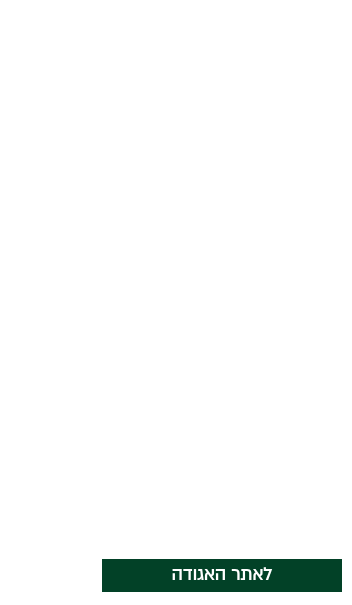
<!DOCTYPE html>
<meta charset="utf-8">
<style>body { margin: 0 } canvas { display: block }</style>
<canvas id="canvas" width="352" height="605"></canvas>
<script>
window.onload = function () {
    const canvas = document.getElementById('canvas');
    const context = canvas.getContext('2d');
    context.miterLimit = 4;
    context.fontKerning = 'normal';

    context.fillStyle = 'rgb(255, 255, 255)';
    context.fillRect(0, 0, 352, 605);
    context.fillStyle = 'rgb(2, 65, 39)';
    context.fillRect(102, 559, 240, 33);
    context.direction = 'rtl';
    context.font = 'bold 20px "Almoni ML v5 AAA"';
    context.fillStyle = 'rgb(255, 255, 255)';
    context.fillText('לאתר האגודה', 272, 580);
};
</script>
